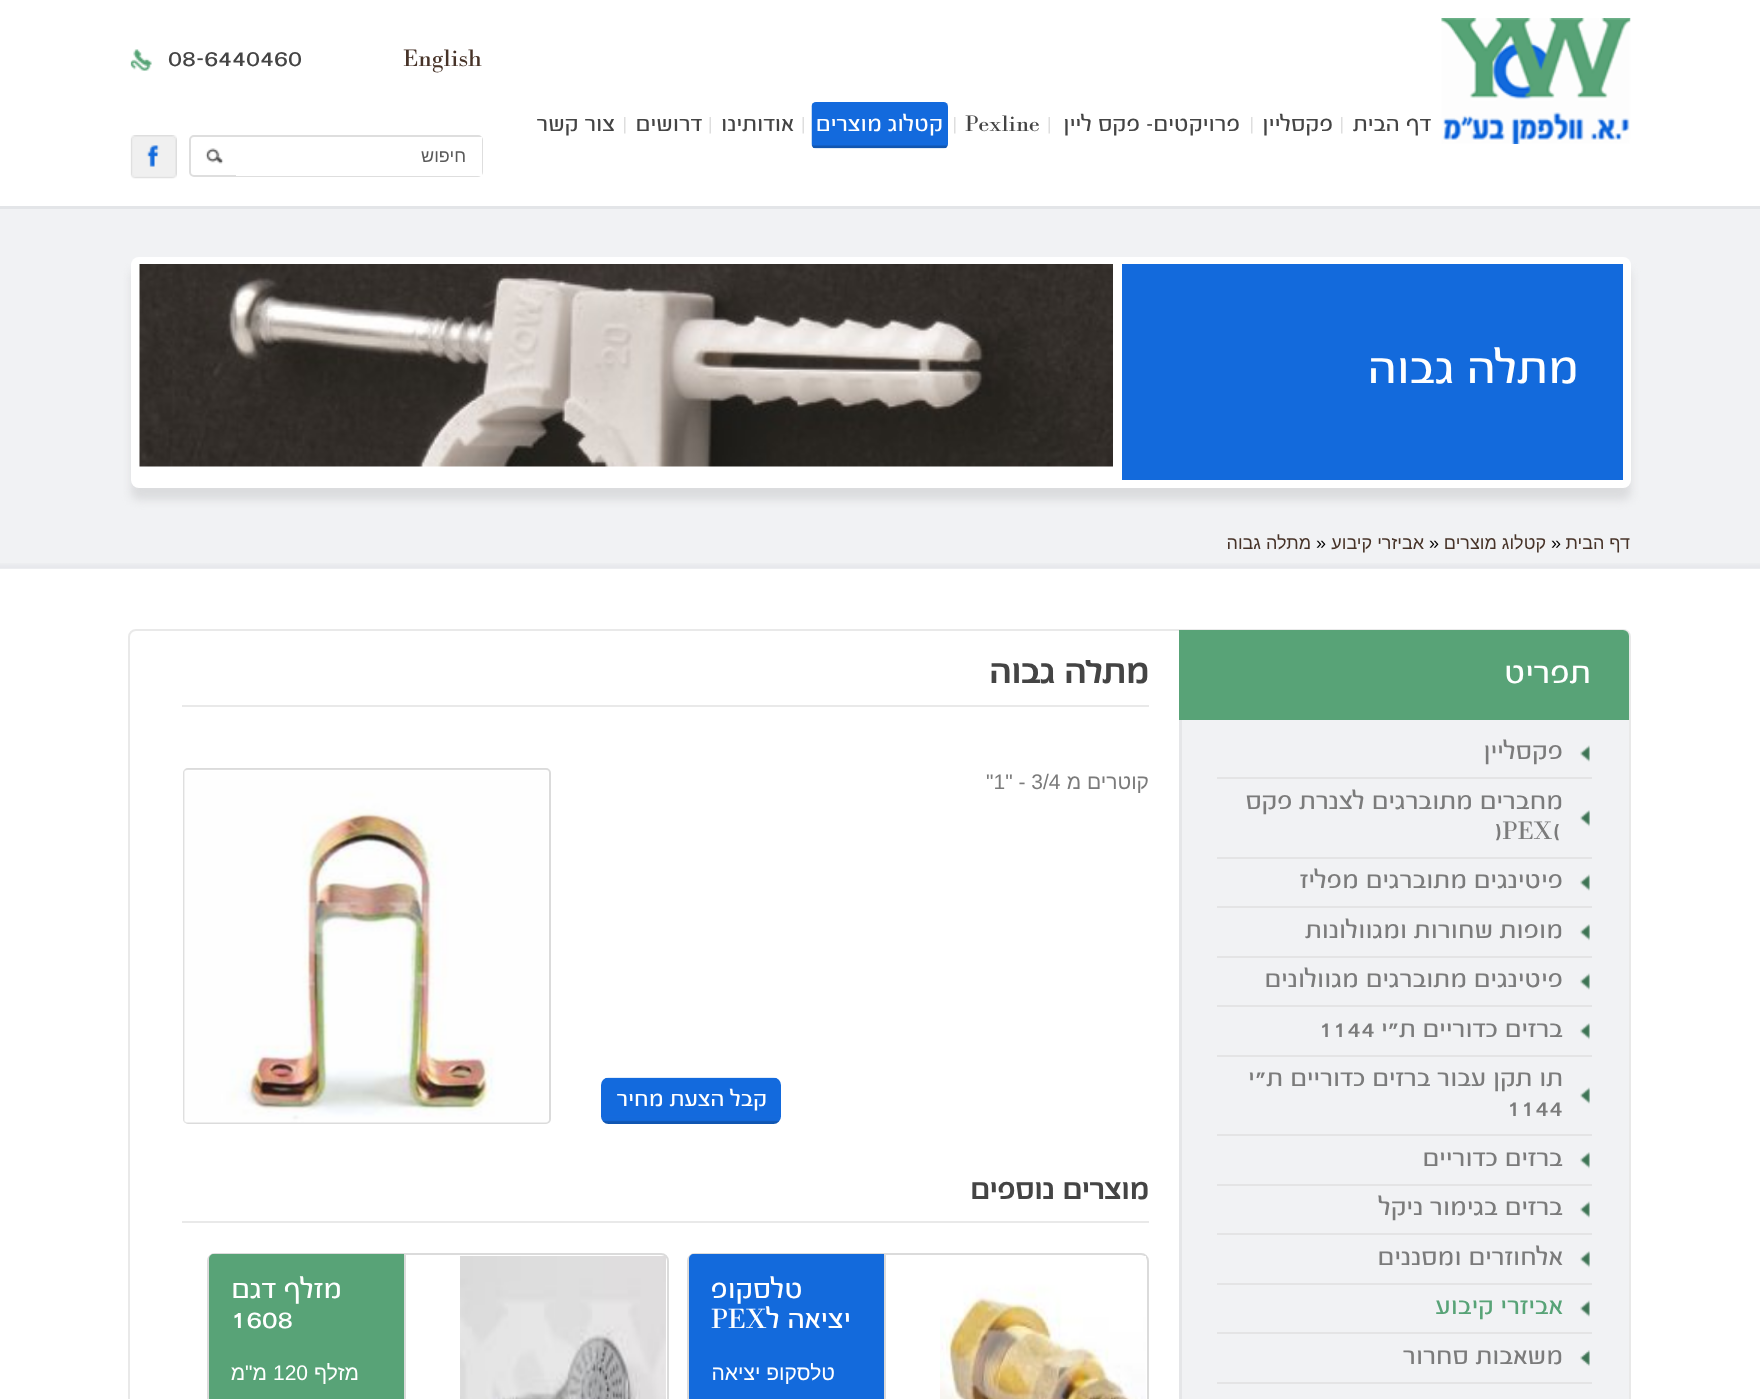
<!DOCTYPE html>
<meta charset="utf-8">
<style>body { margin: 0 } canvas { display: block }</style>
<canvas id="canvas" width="1760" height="1399"></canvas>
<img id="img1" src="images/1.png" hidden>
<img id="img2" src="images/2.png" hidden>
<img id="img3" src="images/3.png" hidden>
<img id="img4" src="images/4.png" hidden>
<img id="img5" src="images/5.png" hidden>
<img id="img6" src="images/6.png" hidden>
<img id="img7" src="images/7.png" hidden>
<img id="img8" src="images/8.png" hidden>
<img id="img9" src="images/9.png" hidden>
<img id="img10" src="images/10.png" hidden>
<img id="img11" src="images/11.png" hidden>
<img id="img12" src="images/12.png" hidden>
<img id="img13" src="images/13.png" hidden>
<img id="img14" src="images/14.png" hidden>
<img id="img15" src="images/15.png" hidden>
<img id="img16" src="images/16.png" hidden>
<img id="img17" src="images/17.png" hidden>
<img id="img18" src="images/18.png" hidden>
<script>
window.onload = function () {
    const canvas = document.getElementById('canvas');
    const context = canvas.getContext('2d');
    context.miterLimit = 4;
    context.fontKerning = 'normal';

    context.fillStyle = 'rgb(255, 255, 255)';
    context.fillRect(0, 0, 1760, 1399);
    context.drawImage(document.getElementById('img1'), 1441, 18, 190, 126);
    context.drawImage(document.getElementById('img2'), 1341, 117, 2, 17);
    context.drawImage(document.getElementById('img2'), 1251, 117, 2, 17);
    context.drawImage(document.getElementById('img3'), 1048, 117, 2, 17);
    context.drawImage(document.getElementById('img2'), 954, 117, 2, 17);
    context.drawImage(document.getElementById('img4'), 811, 102, 137, 47);
    context.drawImage(document.getElementById('img3'), 802, 117, 2, 17);
    context.drawImage(document.getElementById('img3'), 709, 117, 2, 17);
    context.drawImage(document.getElementById('img2'), 624, 117, 2, 17);
    context.drawImage(document.getElementById('img5'), 130, 49, 22, 22);
    context.beginPath();
    context.roundRect(190, 136, 292, 40, 4);
    context.strokeStyle = 'rgb(222, 222, 222)';
    context.lineWidth = 2;
    context.stroke();
    context.fillRect(236, 137, 246, 39);
    context.drawImage(document.getElementById('img6'), 205, 148, 19, 16);
    context.drawImage(document.getElementById('img7'), 130, 135, 47, 44);
    context.fillStyle = 'rgb(241, 242, 244)';
    context.fillRect(0, 209, 1760, 360);
    context.drawImage(document.getElementById('img8'), 0, 563, 1760, 6);
    context.fillStyle = 'rgb(227, 229, 232)';
    context.fillRect(0, 206, 1760, 3);
    context.fillStyle = 'rgb(219, 220, 222)';
    context.filter = 'blur(4px)';
    context.beginPath();
    context.roundRect(131, 269, 1500, 231, 8);
    context.fill();
    context.filter = 'none';
    context.fillStyle = 'rgb(255, 255, 255)';
    context.beginPath();
    context.roundRect(131, 257, 1500, 231, 8);
    context.fill();
    context.fillStyle = 'rgb(19, 106, 220)';
    context.fillRect(1122, 264, 501, 216);
    context.drawImage(document.getElementById('img9'), 139, 264, 974, 203);
    context.beginPath();
    context.roundRect(129, 630, 1501, 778, 7);
    context.strokeStyle = 'rgb(233, 233, 233)';
    context.stroke();
    context.fillStyle = 'rgb(241, 242, 244)';
    context.beginPath();
    context.moveTo(1179, 630);
    context.lineTo(1623, 630);
    context.bezierCurveTo(1626.5, 630, 1629, 632.5, 1629, 636);
    context.lineTo(1629, 1399);
    context.bezierCurveTo(1629, 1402.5, 1626.5, 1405, 1623, 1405);
    context.lineTo(1179, 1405);
    context.closePath();
    context.fill();
    context.fillStyle = 'rgb(229, 230, 232)';
    context.fillRect(1179, 720, 3, 679);
    context.fillStyle = 'rgb(88, 163, 119)';
    context.beginPath();
    context.roundRect(1179, 630, 450, 90, [0, 6, 0, 0]);
    context.fill();
    context.drawImage(document.getElementById('img10'), 1580, 745, 10, 17);
    context.drawImage(document.getElementById('img11'), 1580, 810, 10, 17);
    context.fillStyle = 'rgb(228, 228, 229)';
    context.fillRect(1217, 777, 375, 2);
    context.drawImage(document.getElementById('img10'), 1580, 874, 10, 17);
    context.fillRect(1217, 857, 375, 2);
    context.drawImage(document.getElementById('img11'), 1580, 924, 10, 17);
    context.fillRect(1217, 906, 375, 2);
    context.drawImage(document.getElementById('img10'), 1580, 973, 10, 17);
    context.fillRect(1217, 956, 375, 2);
    context.drawImage(document.getElementById('img12'), 1580, 1023, 10, 17);
    context.fillRect(1217, 1005, 375, 2);
    context.drawImage(document.getElementById('img13'), 1580, 1087, 10, 17);
    context.fillRect(1217, 1055, 375, 2);
    context.drawImage(document.getElementById('img12'), 1580, 1152, 10, 17);
    context.fillRect(1217, 1134, 375, 2);
    context.drawImage(document.getElementById('img10'), 1580, 1201, 10, 17);
    context.fillRect(1217, 1184, 375, 2);
    context.drawImage(document.getElementById('img11'), 1580, 1251, 10, 17);
    context.fillRect(1217, 1233, 375, 2);
    context.drawImage(document.getElementById('img10'), 1580, 1300, 10, 17);
    context.fillRect(1217, 1283, 375, 2);
    context.drawImage(document.getElementById('img14'), 1580, 1350, 10, 16);
    context.fillRect(1217, 1332, 375, 2);
    context.fillRect(1217, 1382, 375, 2);
    context.fillStyle = 'rgb(233, 233, 233)';
    context.fillRect(182, 705, 967, 2);
    context.drawImage(document.getElementById('img15'), 601, 1077, 180, 47);
    context.beginPath();
    context.roundRect(184, 769, 366, 354, 4);
    context.strokeStyle = 'rgb(219, 219, 219)';
    context.stroke();
    context.drawImage(document.getElementById('img16'), 183, 769, 366, 354);
    context.fillRect(182, 1221, 967, 2);
    context.beginPath();
    context.roundRect(688, 1254, 460, 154, 7);
    context.stroke();
    context.drawImage(document.getElementById('img17'), 940, 1256, 206, 143);
    context.fillStyle = 'rgb(19, 106, 220)';
    context.beginPath();
    context.moveTo(694, 1254);
    context.lineTo(885, 1254);
    context.lineTo(885, 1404);
    context.lineTo(694, 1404);
    context.bezierCurveTo(691, 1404, 689, 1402, 689, 1399);
    context.lineTo(689, 1259);
    context.bezierCurveTo(689, 1256, 691, 1254, 694, 1254);
    context.closePath();
    context.fill();
    context.fillStyle = 'rgb(219, 219, 219)';
    context.fillRect(884, 1254, 2, 145);
    context.beginPath();
    context.roundRect(208, 1254, 460, 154, 7);
    context.stroke();
    context.drawImage(document.getElementById('img18'), 460, 1256, 206, 143);
    context.fillStyle = 'rgb(88, 163, 119)';
    context.beginPath();
    context.moveTo(214, 1254);
    context.lineTo(405, 1254);
    context.lineTo(405, 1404);
    context.lineTo(214, 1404);
    context.bezierCurveTo(211, 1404, 209, 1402, 209, 1399);
    context.lineTo(209, 1259);
    context.bezierCurveTo(209, 1256, 211, 1254, 214, 1254);
    context.closePath();
    context.fill();
    context.fillStyle = 'rgb(219, 219, 219)';
    context.fillRect(404, 1254, 2, 145);
    context.direction = 'rtl';
    context.font = '500 24px "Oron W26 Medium"';
    context.fillStyle = 'rgb(68, 68, 68)';
    context.fillText('דף הבית', 1431, 131);
    context.fillText('פקסליין', 1333, 131);
    context.fillText('פרויקטים- פקס ליין', 1240, 131);
    context.direction = 'ltr';
    context.fillText('Pexline', 965, 131);
    context.direction = 'rtl';
    context.fillStyle = 'rgb(255, 255, 255)';
    context.fillText('קטלוג מוצרים', 943, 131);
    context.fillStyle = 'rgb(68, 68, 68)';
    context.fillText('אודותינו', 794, 131);
    context.fillText('דרושים', 702, 131);
    context.fillText('צור קשר', 615, 131);
    context.direction = 'ltr';
    context.font = '500 25.5px "Oron W26 Medium"';
    context.fillStyle = 'rgb(71, 51, 40)';
    context.fillText('English', 403, 66);
    context.font = '500 27px "Oron W26 Medium"';
    context.fillStyle = 'rgb(68, 68, 68)';
    context.fillText('08-6440460', 168, 66);
    context.direction = 'rtl';
    context.font = '18px Liberation Sans';
    context.fillStyle = 'rgb(90, 90, 90)';
    context.fillText('חיפוש', 466, 162);
    context.font = '500 49.5px "Oron W26 Medium"';
    context.fillStyle = 'rgb(255, 255, 255)';
    context.fillText('מתלה גבוה', 1579, 383);
    context.font = '18px Liberation Sans';
    context.fillStyle = 'rgb(71, 51, 40)';
    context.fillText('דף הבית', 1630, 549);
    context.direction = 'ltr';
    context.fillStyle = 'rgb(0, 0, 0)';
    context.fillText('»', 1551, 549);
    context.direction = 'rtl';
    context.fillStyle = 'rgb(71, 51, 40)';
    context.fillText('קטלוג מוצרים', 1546, 549);
    context.direction = 'ltr';
    context.fillStyle = 'rgb(0, 0, 0)';
    context.fillText('»', 1429, 549);
    context.direction = 'rtl';
    context.fillStyle = 'rgb(71, 51, 40)';
    context.fillText('אביזרי קיבוע', 1424, 549);
    context.direction = 'ltr';
    context.fillStyle = 'rgb(0, 0, 0)';
    context.fillText('»', 1316, 549);
    context.direction = 'rtl';
    context.fillStyle = 'rgb(71, 51, 40)';
    context.fillText('מתלה גבוה', 1311, 549);
    context.font = '500 34.5px "Oron W26 Medium"';
    context.fillStyle = 'rgb(255, 255, 255)';
    context.fillText('תפריט', 1591, 683);
    context.font = '500 27px "Oron W26 Medium"';
    context.fillStyle = 'rgb(123, 123, 123)';
    context.fillText('פקסליין', 1563, 759);
    context.fillText('מחברים מתוברגים לצנרת פקס', 1563, 809);
    context.direction = 'ltr';
    context.fillText(')PEX(', 1492, 839);
    context.direction = 'rtl';
    context.fillText('פיטינגים מתוברגים מפליז', 1563, 888);
    context.fillText('מופות שחורות ומגוולונות', 1563, 938);
    context.fillText('פיטינגים מתוברגים מגוולונים', 1563, 987);
    context.fillText('ברזים כדוריים ת"י', 1563, 1037);
    context.direction = 'ltr';
    context.fillText('1144', 1319, 1037);
    context.direction = 'rtl';
    context.fillText('תו תקן עבור ברזים כדוריים', 1563, 1086);
    context.fillText('ת"י', 1283, 1086);
    context.direction = 'ltr';
    context.fillText('1144', 1507, 1116);
    context.direction = 'rtl';
    context.fillText('ברזים כדוריים', 1563, 1166);
    context.fillText('ברזים בגימור ניקל', 1563, 1215);
    context.fillText('אלחוזרים ומסננים', 1563, 1265);
    context.fillStyle = 'rgb(88, 163, 119)';
    context.fillText('אביזרי קיבוע', 1563, 1314);
    context.fillStyle = 'rgb(123, 123, 123)';
    context.fillText('משאבות סחרור', 1563, 1364);
    context.save();
    context.beginPath();
    context.rect(182, 660, 967, 45);
    context.clip();
    context.font = 'bold 37.5px "Oron W26 Medium"';
    context.fillStyle = 'rgb(68, 68, 68)';
    context.fillText('מתלה גבוה', 1149, 683);
    context.restore();
    context.font = '21px Liberation Sans';
    context.fillText('קוטרים מ', 1149, 789);
    context.direction = 'ltr';
    context.fillText('"1" - 3/4', 986, 789);
    context.direction = 'rtl';
    context.font = '500 24px "Oron W26 Medium"';
    context.fillStyle = 'rgb(255, 255, 255)';
    context.fillText('קבל הצעת מחיר', 767, 1106);
    context.font = 'bold 31.5px "Oron W26 Medium"';
    context.fillStyle = 'rgb(68, 68, 68)';
    context.fillText('מוצרים נוספים', 1149, 1199);
    context.font = '500 30px "Oron W26 Medium"';
    context.fillStyle = 'rgb(255, 255, 255)';
    context.fillText('טלסקופ', 803, 1298);
    context.direction = 'ltr';
    context.fillText('PEX', 711, 1328);
    context.direction = 'rtl';
    context.fillText('יציאה ל', 851, 1328);
    context.font = '21px Liberation Sans';
    context.fillText('טלסקופ יציאה', 835, 1380);
    context.font = '500 30px "Oron W26 Medium"';
    context.fillText('מזלף דגם', 342, 1298);
    context.direction = 'ltr';
    context.fillText('1608', 231, 1328);
    context.direction = 'rtl';
    context.font = '21px Liberation Sans';
    context.fillText('מזלף', 359, 1380);
    context.direction = 'ltr';
    context.fillText('120', 273, 1380);
    context.direction = 'rtl';
    context.fillText('מ"מ', 267, 1380);
};
</script>
